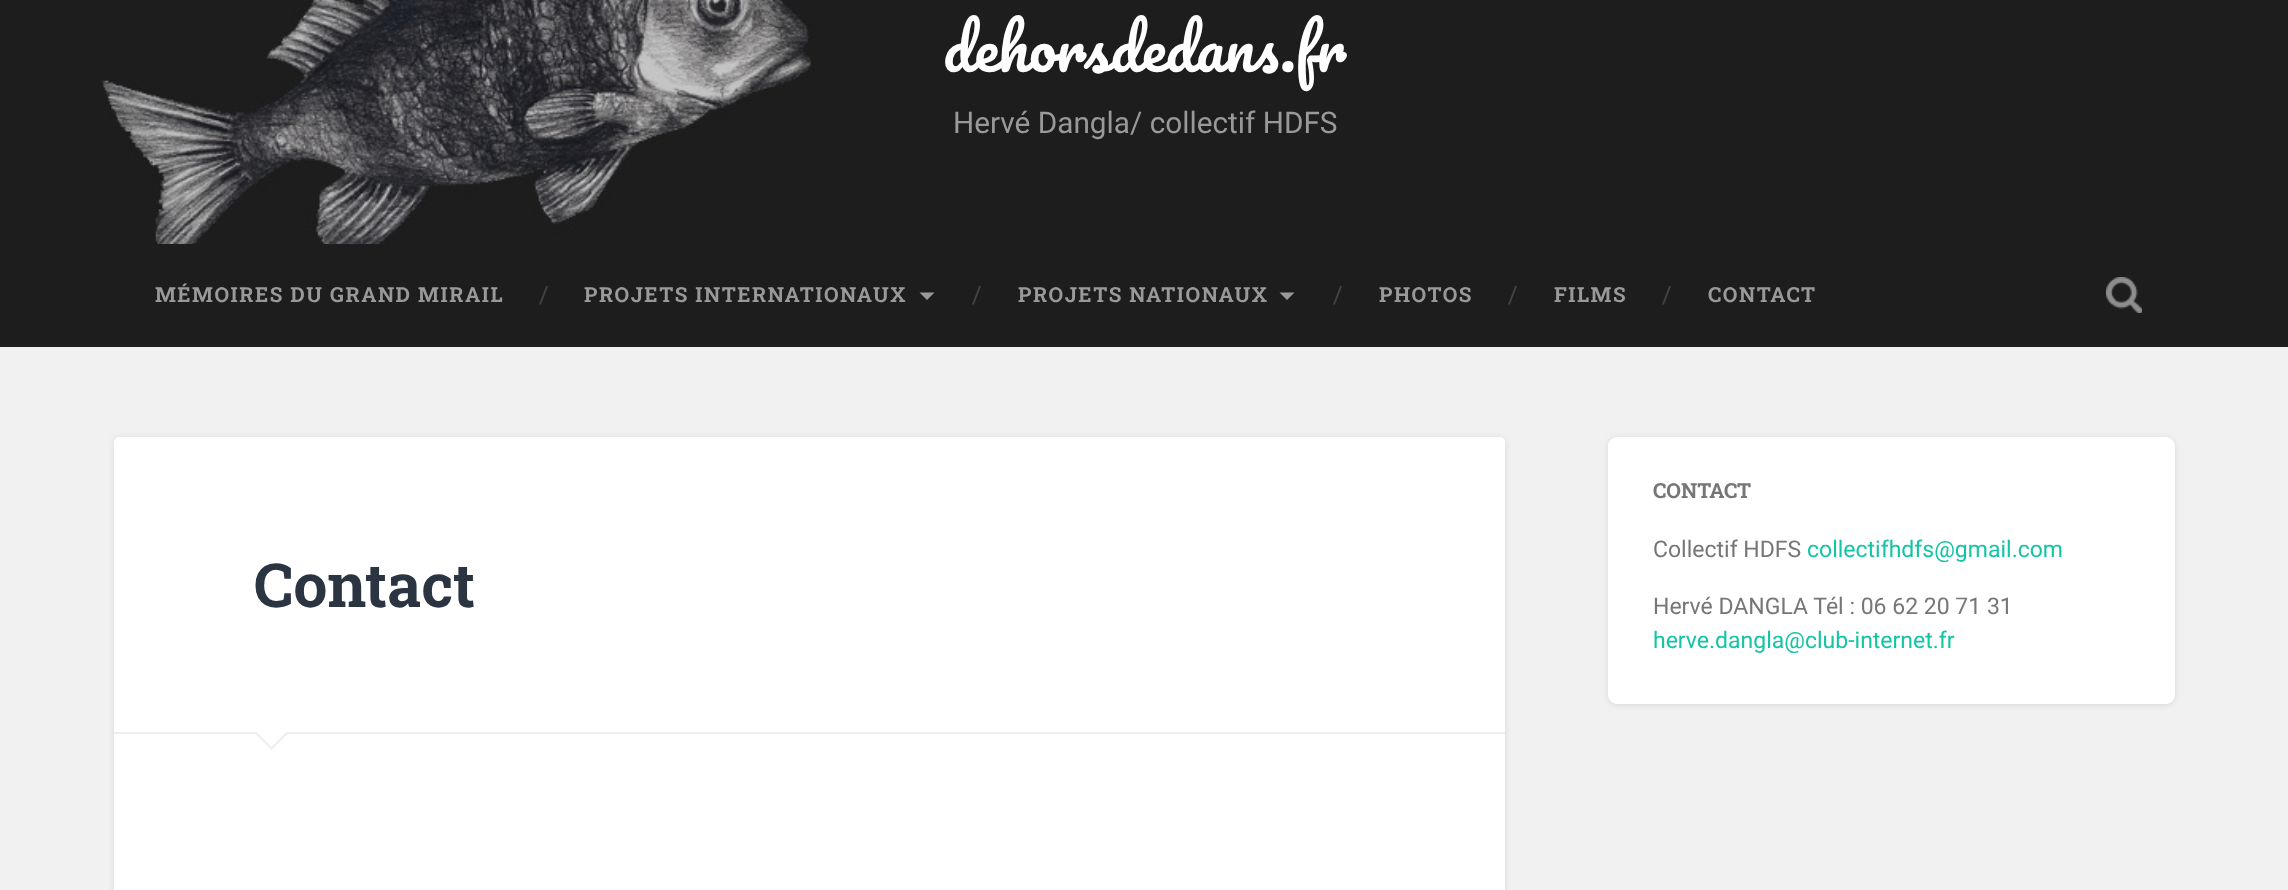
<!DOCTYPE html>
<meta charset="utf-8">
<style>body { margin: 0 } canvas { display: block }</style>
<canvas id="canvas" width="2288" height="890"></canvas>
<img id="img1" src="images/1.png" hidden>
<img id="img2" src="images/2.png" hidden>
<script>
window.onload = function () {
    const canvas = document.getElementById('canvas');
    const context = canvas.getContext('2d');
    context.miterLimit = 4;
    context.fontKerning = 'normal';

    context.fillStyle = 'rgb(241, 241, 241)';
    context.fillRect(0, 0, 2288, 890);
    context.fillStyle = 'rgb(29, 29, 29)';
    context.fillRect(0, 0, 2288, 347);
    context.drawImage(document.getElementById('img1'), 101, 0, 713, 244);
    context.fillStyle = 'rgb(153, 153, 153)';
    context.beginPath();
    context.moveTo(919.5, 292.5);
    context.lineTo(934.5, 292.5);
    context.lineTo(927, 300);
    context.closePath();
    context.fill();
    context.beginPath();
    context.moveTo(1279.5, 292.5);
    context.lineTo(1294.5, 292.5);
    context.lineTo(1287, 300);
    context.closePath();
    context.fill();
    context.drawImage(document.getElementById('img2'), 2106, 277, 36, 36);
    context.fillStyle = 'rgba(0, 0, 0, 0.1)';
    context.filter = 'blur(3px)';
    context.beginPath();
    context.roundRect(114, 438, 1391, 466, 5);
    context.fill();
    context.filter = 'none';
    context.fillStyle = 'rgb(255, 255, 255)';
    context.beginPath();
    context.roundRect(114, 437, 1391, 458, 5);
    context.fill();
    context.fillStyle = 'rgb(238, 238, 238)';
    context.fillRect(114, 732, 1391, 2);
    context.beginPath();
    context.moveTo(253.5, 732);
    context.lineTo(289.5, 732);
    context.lineTo(271.5, 750);
    context.closePath();
    context.fill();
    context.fillStyle = 'rgb(255, 255, 255)';
    context.beginPath();
    context.moveTo(255, 730.5);
    context.lineTo(288, 730.5);
    context.lineTo(271.5, 747);
    context.closePath();
    context.fill();
    context.fillStyle = 'rgba(0, 0, 0, 0.1)';
    context.filter = 'blur(3px)';
    context.beginPath();
    context.roundRect(1608, 438, 567, 267, 9);
    context.fill();
    context.filter = 'none';
    context.fillStyle = 'rgb(255, 255, 255)';
    context.beginPath();
    context.roundRect(1608, 437, 567, 267, 9);
    context.fill();
    context.font = '60.75px Pacifico';
    context.fillText('dehorsdedans.fr', 943, 72);
    context.font = '29.75px Roboto';
    context.fillStyle = 'rgb(153, 153, 153)';
    context.fillText('Hervé Dangla/ collectif HDFS', 953, 133);
    context.letterSpacing = '1.5px';
    context.font = 'bold 20.7px Roboto Slab';
    context.fillText('MÉMOIRES DU GRAND MIRAIL', 155, 302);
    context.letterSpacing = '0px';
    context.font = '24px Roboto Slab';
    context.fillStyle = 'rgb(68, 68, 68)';
    context.fillText('/', 539, 303);
    context.letterSpacing = '1.5px';
    context.font = 'bold 20.7px Roboto Slab';
    context.fillStyle = 'rgb(153, 153, 153)';
    context.fillText('PROJETS INTERNATIONAUX', 584, 302);
    context.letterSpacing = '0px';
    context.font = '24px Roboto Slab';
    context.fillStyle = 'rgb(68, 68, 68)';
    context.fillText('/', 972, 303);
    context.letterSpacing = '1.5px';
    context.font = 'bold 20.7px Roboto Slab';
    context.fillStyle = 'rgb(153, 153, 153)';
    context.fillText('PROJETS NATIONAUX', 1018, 302);
    context.letterSpacing = '0px';
    context.font = '24px Roboto Slab';
    context.fillStyle = 'rgb(68, 68, 68)';
    context.fillText('/', 1333, 303);
    context.letterSpacing = '1.5px';
    context.font = 'bold 20.7px Roboto Slab';
    context.fillStyle = 'rgb(153, 153, 153)';
    context.fillText('PHOTOS', 1379, 302);
    context.letterSpacing = '0px';
    context.font = '24px Roboto Slab';
    context.fillStyle = 'rgb(68, 68, 68)';
    context.fillText('/', 1508, 303);
    context.letterSpacing = '1.5px';
    context.font = 'bold 20.7px Roboto Slab';
    context.fillStyle = 'rgb(153, 153, 153)';
    context.fillText('FILMS', 1554, 302);
    context.letterSpacing = '0px';
    context.font = '24px Roboto Slab';
    context.fillStyle = 'rgb(68, 68, 68)';
    context.fillText('/', 1662, 303);
    context.letterSpacing = '1.5px';
    context.font = 'bold 20.7px Roboto Slab';
    context.fillStyle = 'rgb(153, 153, 153)';
    context.fillText('CONTACT', 1708, 302);
    context.letterSpacing = '0px';
    context.font = 'bold 60.75px Roboto Slab';
    context.fillStyle = 'rgb(43, 53, 66)';
    context.fillText('Contact', 254, 607);
    context.font = 'bold 20.7px Roboto Slab';
    context.fillStyle = 'rgb(118, 118, 118)';
    context.fillText('CONTACT', 1653, 498);
    context.font = '23px Roboto';
    context.fillText('Collectif HDFS', 1653, 557);
    context.fillStyle = 'rgb(19, 196, 165)';
    context.fillText('collectifhdfs@gmail.com', 1807, 557);
    context.fillStyle = 'rgb(118, 118, 118)';
    context.fillText('Hervé DANGLA Tél : 06 62 20 71 31', 1653, 614);
    context.fillStyle = 'rgb(19, 196, 165)';
    context.fillText('herve.dangla@club-internet.fr', 1653, 648);
};
</script>
